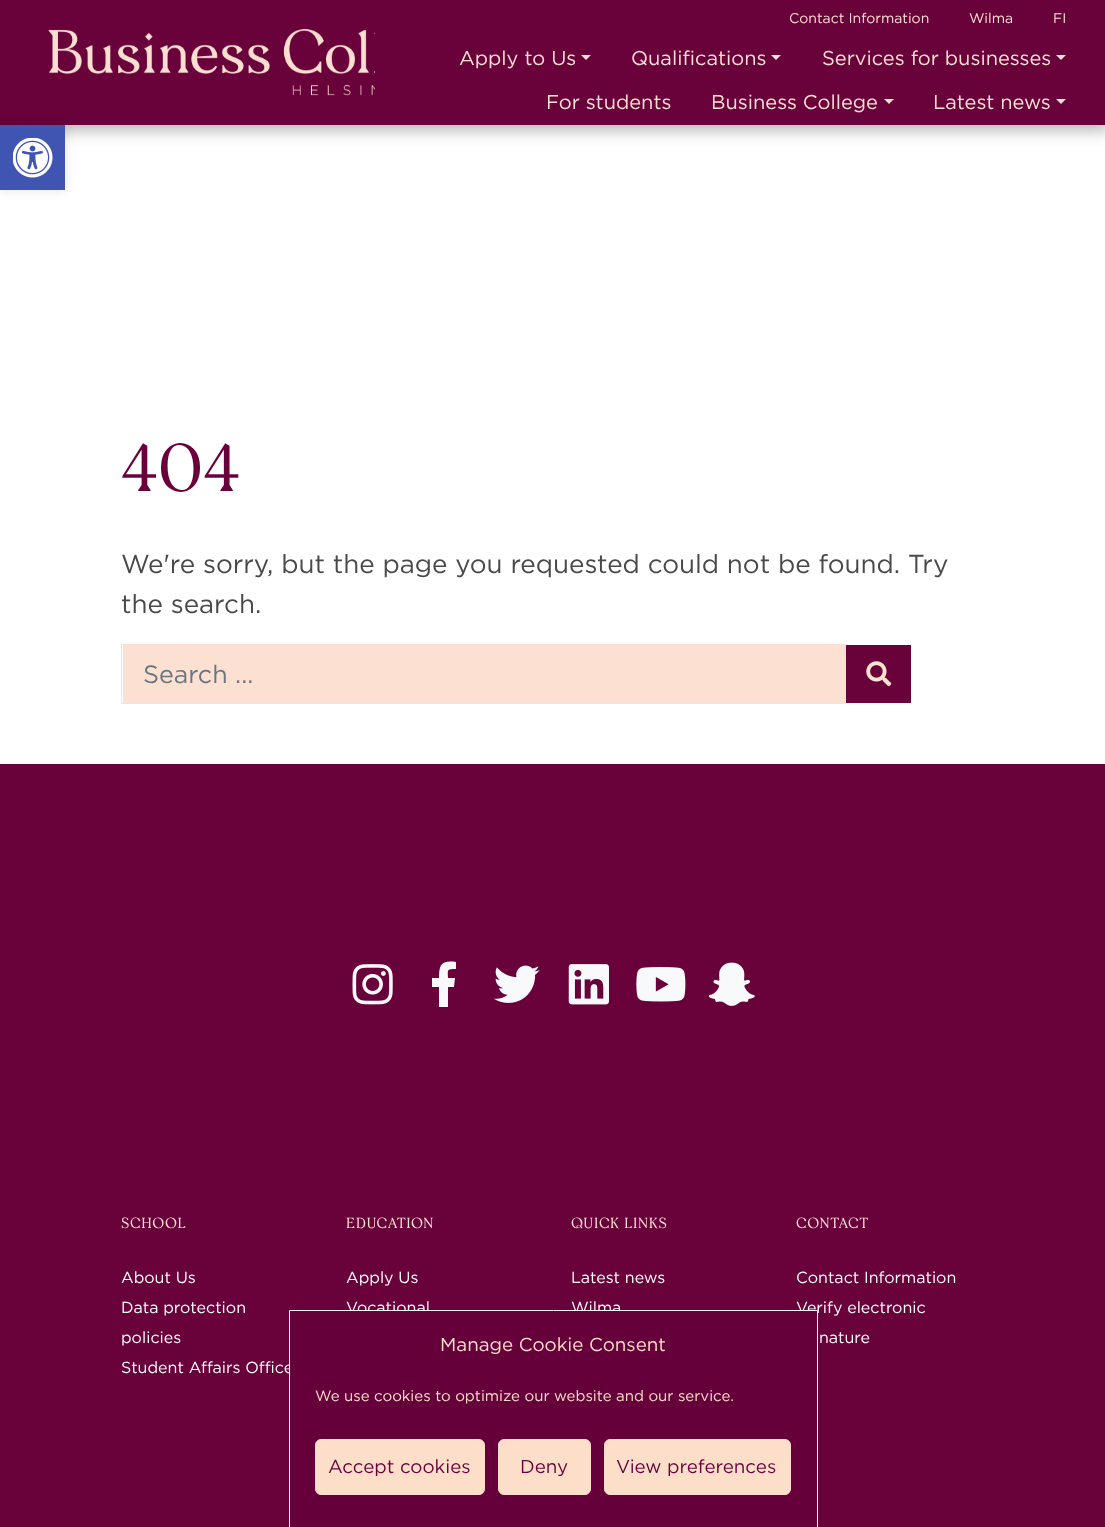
<!DOCTYPE html>
<meta charset="utf-8">
<style>body { margin: 0 } canvas { display: block }</style>
<canvas id="canvas" width="1105" height="1527"></canvas>
<img id="img1" src="images/1.png" hidden>
<img id="img2" src="images/2.png" hidden>
<img id="img3" src="images/3.png" hidden>
<img id="img4" src="images/4.png" hidden>
<img id="img5" src="images/5.png" hidden>
<img id="img6" src="images/6.png" hidden>
<img id="img7" src="images/7.png" hidden>
<img id="img8" src="images/8.png" hidden>
<script>
window.onload = function () {
    const canvas = document.getElementById('canvas');
    const context = canvas.getContext('2d');
    context.miterLimit = 4;
    context.fontKerning = 'normal';

    context.fillStyle = 'rgb(255, 255, 255)';
    context.fillRect(0, 0, 1105, 1527);
    context.fillStyle = 'rgba(0, 0, 0, 0.3)';
    context.filter = 'blur(8px)';
    context.beginPath();
    context.rect(-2, -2, 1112, 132);
    context.fill();
    context.filter = 'none';
    context.fillStyle = 'rgb(105, 1, 59)';
    context.fillRect(0, 0, 1105, 125);
    context.fillStyle = 'rgba(0, 0, 0, 0.1)';
    context.filter = 'blur(6px)';
    context.beginPath();
    context.rect(0, 125, 65, 65);
    context.fill();
    context.filter = 'none';
    context.fillStyle = 'rgb(64, 84, 178)';
    context.fillRect(0, 125, 65, 65);
    context.drawImage(document.getElementById('img1'), 13, 138, 40, 40);
    context.drawImage(document.getElementById('img2'), 48, 29, 327, 67);
    context.fillStyle = 'rgb(252, 224, 209)';
    context.beginPath();
    context.moveTo(581, 55);
    context.lineTo(591, 55);
    context.lineTo(586, 60);
    context.closePath();
    context.fill();
    context.beginPath();
    context.moveTo(771, 55);
    context.lineTo(781, 55);
    context.lineTo(776, 60);
    context.closePath();
    context.fill();
    context.beginPath();
    context.moveTo(1056, 55);
    context.lineTo(1066, 55);
    context.lineTo(1061, 60);
    context.closePath();
    context.fill();
    context.beginPath();
    context.moveTo(884, 99);
    context.lineTo(894, 99);
    context.lineTo(889, 104);
    context.closePath();
    context.fill();
    context.beginPath();
    context.moveTo(1056, 99);
    context.lineTo(1066, 99);
    context.lineTo(1061, 104);
    context.closePath();
    context.fill();
    context.fillRect(123, 645, 722, 58);
    context.strokeStyle = 'rgb(252, 224, 209)';
    context.strokeRect(121.5, 644.5, 724, 59);
    context.fillStyle = 'rgb(105, 1, 59)';
    context.fillRect(846, 645, 65, 58);
    context.drawImage(document.getElementById('img3'), 866, 661, 26, 26);
    context.fillRect(0, 764, 1105, 763);
    context.drawImage(document.getElementById('img4'), 352, 964, 41, 41);
    context.fillStyle = 'rgb(248, 249, 250)';
    context.beginPath();
    context.moveTo(439, 1007);
    context.lineTo(439, 987);
    context.lineTo(432, 987);
    context.lineTo(432, 978);
    context.lineTo(439, 978);
    context.bezierCurveTo(439, 965, 441, 960, 456, 962);
    context.lineTo(456, 969);
    context.bezierCurveTo(446, 969, 448, 970, 448, 978);
    context.lineTo(455, 978);
    context.lineTo(454, 987);
    context.lineTo(448, 987);
    context.lineTo(448, 1007);
    context.fill();
    context.drawImage(document.getElementById('img5'), 494, 965, 46, 38);
    context.drawImage(document.getElementById('img6'), 568, 964, 41, 41);
    context.drawImage(document.getElementById('img7'), 636, 967, 50, 35);
    context.drawImage(document.getElementById('img8'), 708, 962, 47, 44);
    context.font = '300 14px "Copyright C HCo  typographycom"';
    context.fillStyle = 'rgb(252, 224, 209)';
    context.fillText('Contact Information', 789, 23);
    context.fillText('Wilma', 969, 23);
    context.fillText('FI', 1053, 23);
    context.font = '300 20px "Copyright C HCo  typographycom"';
    context.fillText('Apply to Us', 459, 65);
    context.fillText('Qualifications', 631, 65);
    context.fillText('Services for businesses', 822, 65);
    context.fillText('For students', 546, 109);
    context.fillText('Business College', 711, 109);
    context.fillText('Latest news', 933, 109);
    context.font = '64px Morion';
    context.fillStyle = 'rgb(105, 1, 59)';
    context.fillText('404', 121, 491);
    context.font = '300 26px "Copyright C HCo  typographycom"';
    context.fillStyle = 'rgb(73, 73, 73)';
    context.fillText('We\'re sorry, but the page you requested could not be found. Try', 121, 573);
    context.fillText('the search.', 121, 613);
    context.font = '300 25px "Copyright C HCo  typographycom"';
    context.fillStyle = 'rgb(108, 117, 125)';
    context.fillText('Search ...', 143, 683);
    context.letterSpacing = '0.6px';
    context.font = '14px Morion';
    context.fillStyle = 'rgb(252, 224, 209)';
    context.fillText('SCHOOL', 121, 1228);
    context.letterSpacing = '0px';
    context.font = '300 16px "Copyright C HCo  typographycom"';
    context.fillStyle = 'rgb(255, 255, 255)';
    context.fillText('About Us', 121, 1283);
    context.fillText('Data protection', 121, 1313);
    context.fillText('policies', 121, 1343);
    context.fillText('Student Affairs Office', 121, 1373);
    context.letterSpacing = '0.6px';
    context.font = '14px Morion';
    context.fillStyle = 'rgb(252, 224, 209)';
    context.fillText('EDUCATION', 346, 1228);
    context.letterSpacing = '0px';
    context.font = '300 16px "Copyright C HCo  typographycom"';
    context.fillStyle = 'rgb(255, 255, 255)';
    context.fillText('Apply Us', 346, 1283);
    context.fillText('Vocational', 346, 1313);
    context.letterSpacing = '0.6px';
    context.font = '14px Morion';
    context.fillStyle = 'rgb(252, 224, 209)';
    context.fillText('QUICK LINKS', 571, 1228);
    context.letterSpacing = '0px';
    context.font = '300 16px "Copyright C HCo  typographycom"';
    context.fillStyle = 'rgb(255, 255, 255)';
    context.fillText('Latest news', 571, 1283);
    context.fillText('Wilma', 571, 1313);
    context.letterSpacing = '0.6px';
    context.font = '14px Morion';
    context.fillStyle = 'rgb(252, 224, 209)';
    context.fillText('CONTACT', 796, 1228);
    context.letterSpacing = '0px';
    context.font = '300 16px "Copyright C HCo  typographycom"';
    context.fillStyle = 'rgb(255, 255, 255)';
    context.fillText('Contact Information', 796, 1283);
    context.fillText('Verify electronic', 796, 1313);
    context.fillText('nature', 819, 1343);
    context.fillStyle = 'rgb(102, 0, 59)';
    context.beginPath();
    context.rect(289.5, 1310.5, 528, 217);
    context.fill();
    context.strokeStyle = 'rgb(249, 249, 249)';
    context.stroke();
    context.font = '300 18.75px "Copyright C HCo  typographycom"';
    context.fillStyle = 'rgb(252, 222, 201)';
    context.fillText('Manage Cookie Consent', 440, 1351);
    context.font = '300 15px "Copyright C HCo  typographycom"';
    context.fillText('We use cookies to optimize our website and our service.', 315, 1401);
    context.beginPath();
    context.roundRect(315.5, 1439.5, 169, 55, 5.5);
    context.fill();
    context.strokeStyle = 'rgb(252, 222, 201)';
    context.stroke();
    context.font = '300 18.75px "Copyright C HCo  typographycom"';
    context.fillStyle = 'rgb(105, 1, 59)';
    context.fillText('Accept cookies', 328, 1473);
    context.fillStyle = 'rgb(252, 222, 201)';
    context.beginPath();
    context.roundRect(498.5, 1439.5, 92, 55, 5.5);
    context.fill();
    context.stroke();
    context.fillStyle = 'rgb(105, 1, 59)';
    context.fillText('Deny', 520, 1473);
    context.fillStyle = 'rgb(252, 222, 201)';
    context.beginPath();
    context.roundRect(604.5, 1439.5, 186, 55, 5.5);
    context.fill();
    context.stroke();
    context.fillStyle = 'rgb(105, 1, 59)';
    context.fillText('View preferences', 616, 1473);
};
</script>
